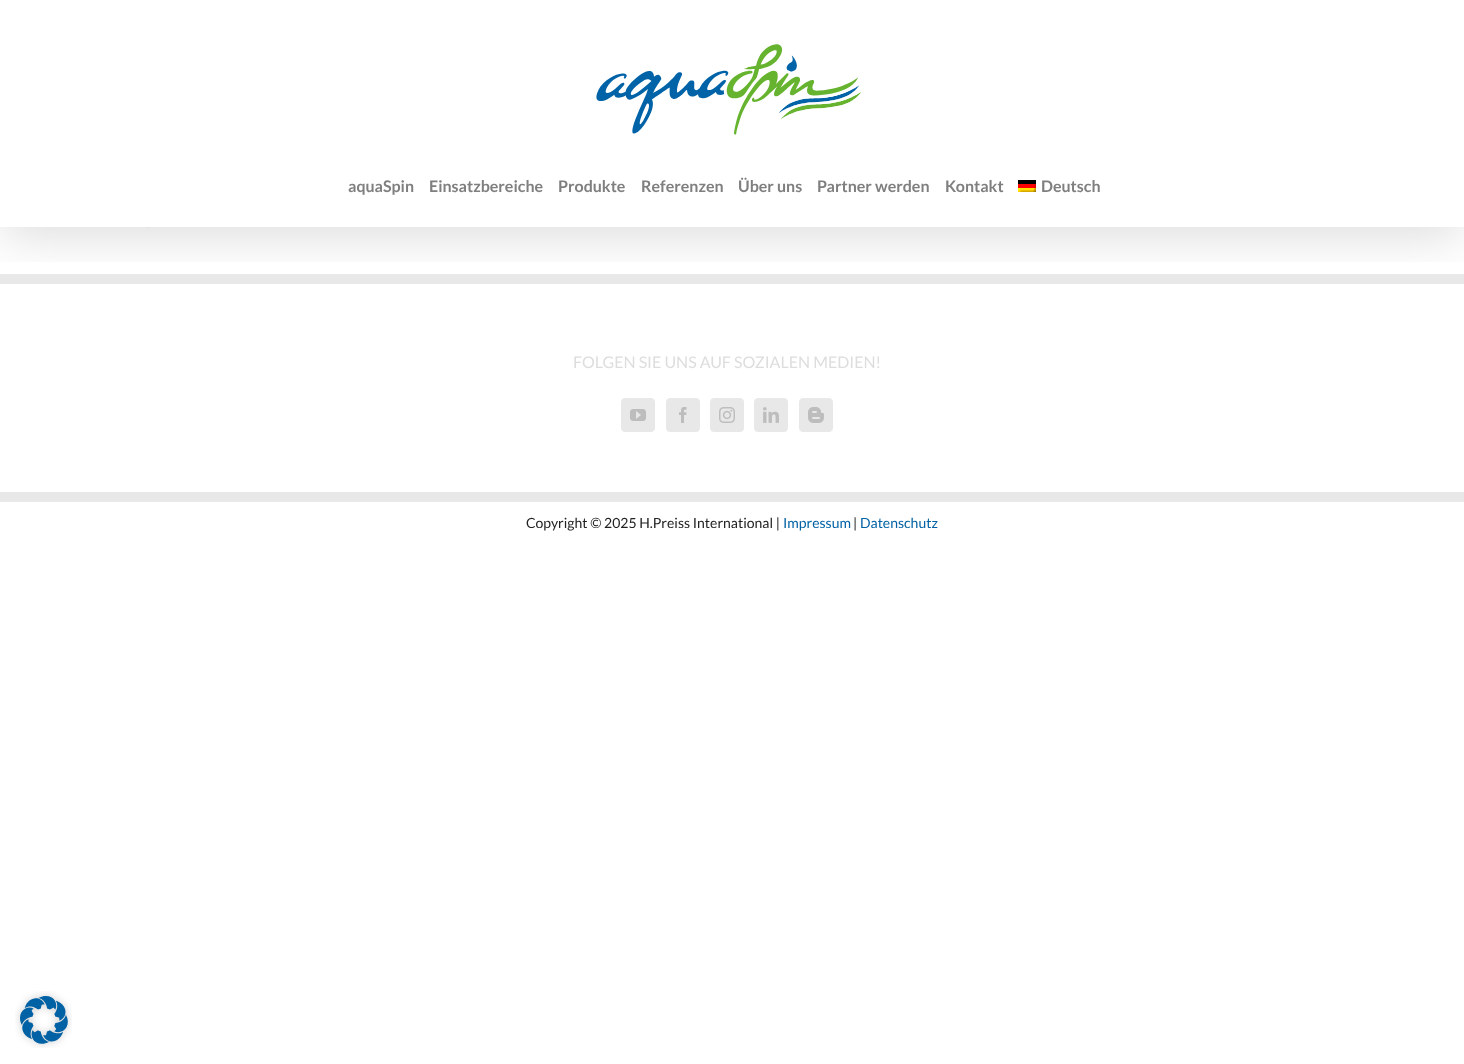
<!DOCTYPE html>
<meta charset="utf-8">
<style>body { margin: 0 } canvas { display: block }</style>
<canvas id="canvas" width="1464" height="1064"></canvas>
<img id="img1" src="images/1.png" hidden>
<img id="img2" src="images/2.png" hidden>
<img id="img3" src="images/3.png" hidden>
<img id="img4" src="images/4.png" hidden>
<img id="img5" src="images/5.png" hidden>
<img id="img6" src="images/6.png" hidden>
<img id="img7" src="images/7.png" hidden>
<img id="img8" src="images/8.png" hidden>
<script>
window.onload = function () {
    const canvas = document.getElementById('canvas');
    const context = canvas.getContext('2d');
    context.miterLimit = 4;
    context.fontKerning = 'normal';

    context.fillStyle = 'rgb(255, 255, 255)';
    context.fillRect(0, 0, 1464, 1064);
    context.fillStyle = 'rgb(232, 236, 240)';
    context.fillRect(147, 227, 1, 1);
    context.fillStyle = 'rgb(232, 232, 232)';
    context.fillRect(0, 274, 1464, 10);
    context.save();
    context.beginPath();
    context.rect(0, 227, 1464, 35);
    context.clip();
    context.fillStyle = 'rgba(0, 0, 0, 0.14)';
    context.filter = 'blur(25px)';
    context.beginPath();
    context.rect(2, 12, 1460, 223);
    context.fill();
    context.filter = 'none';
    context.restore();
    context.drawImage(document.getElementById('img1'), 596, 44, 265, 91);
    context.drawImage(document.getElementById('img2'), 1018, 180, 18, 12);
    context.beginPath();
    context.roundRect(621.5, 398.5, 33, 33, 3.5);
    context.fill();
    context.strokeStyle = 'rgb(232, 232, 232)';
    context.stroke();
    context.drawImage(document.getElementById('img3'), 630, 409, 16, 12);
    context.beginPath();
    context.roundRect(666.5, 398.5, 33, 33, 3.5);
    context.fill();
    context.stroke();
    context.drawImage(document.getElementById('img4'), 679, 407, 8, 16);
    context.beginPath();
    context.roundRect(710.5, 398.5, 33, 33, 3.5);
    context.fill();
    context.stroke();
    context.drawImage(document.getElementById('img5'), 719, 407, 16, 16);
    context.beginPath();
    context.roundRect(754.5, 398.5, 33, 33, 3.5);
    context.fill();
    context.stroke();
    context.drawImage(document.getElementById('img6'), 763, 407, 16, 16);
    context.beginPath();
    context.roundRect(799.5, 398.5, 33, 33, 3.5);
    context.fill();
    context.stroke();
    context.drawImage(document.getElementById('img7'), 808, 407, 16, 16);
    context.fillRect(0, 492, 1464, 10);
    context.drawImage(document.getElementById('img8'), 15, 991, 57, 57);
    context.font = 'bold 16px Lato';
    context.fillStyle = 'rgb(127, 127, 127)';
    context.fillText('aquaSpin', 348, 192);
    context.fillText('Einsatzbereiche', 429, 192);
    context.fillText('Produkte', 558, 192);
    context.fillText('Referenzen', 641, 192);
    context.fillText('Über uns', 738, 192);
    context.fillText('Partner werden', 817, 192);
    context.fillText('Kontakt', 945, 192);
    context.fillText('Deutsch', 1041, 192);
    context.font = '16px Lato';
    context.fillStyle = 'rgb(221, 221, 221)';
    context.fillText('FOLGEN SIE UNS AUF SOZIALEN MEDIEN!', 573, 368);
    context.font = '14px Lato';
    context.fillStyle = 'rgb(34, 34, 34)';
    context.fillText('Copyright © 2025 H.Preiss International |', 526, 528);
    context.fillStyle = 'rgb(0, 97, 164)';
    context.fillText('Impressum', 783, 528);
    context.fillStyle = 'rgb(34, 34, 34)';
    context.fillText('|', 853, 528);
    context.fillStyle = 'rgb(0, 97, 164)';
    context.fillText('Datenschutz', 860, 528);
};
</script>
